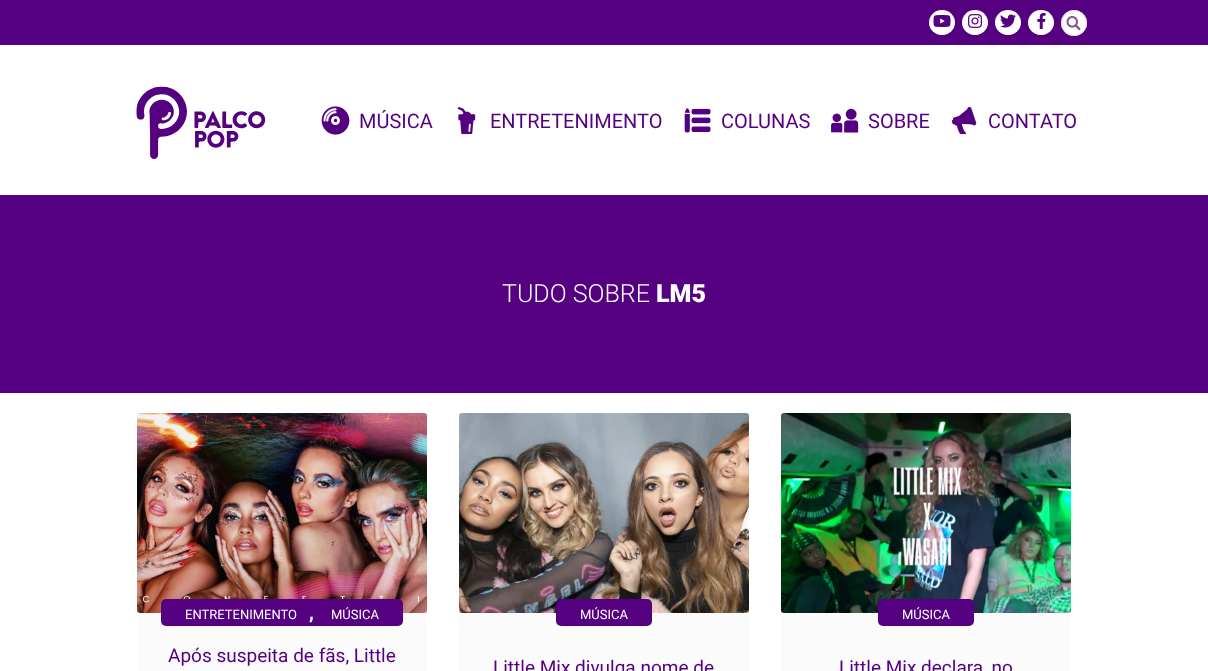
<!DOCTYPE html>
<meta charset="utf-8">
<style>body { margin: 0 } canvas { display: block }</style>
<canvas id="canvas" width="1208" height="671"></canvas>
<img id="img1" src="images/1.png" hidden>
<img id="img2" src="images/2.png" hidden>
<img id="img3" src="images/3.png" hidden>
<img id="img4" src="images/4.png" hidden>
<img id="img5" src="images/5.png" hidden>
<img id="img6" src="images/6.png" hidden>
<img id="img7" src="images/7.png" hidden>
<img id="img8" src="images/8.png" hidden>
<img id="img9" src="images/9.png" hidden>
<img id="img10" src="images/10.png" hidden>
<img id="img11" src="images/11.png" hidden>
<img id="img12" src="images/12.png" hidden>
<img id="img13" src="images/13.png" hidden>
<img id="img14" src="images/14.png" hidden>
<script>
window.onload = function () {
    const canvas = document.getElementById('canvas');
    const context = canvas.getContext('2d');
    context.miterLimit = 4;
    context.fontKerning = 'normal';

    context.fillStyle = 'rgb(255, 255, 255)';
    context.fillRect(0, 0, 1208, 671);
    context.fillStyle = 'rgb(85, 0, 129)';
    context.fillRect(0, 0, 1208, 45);
    context.fillStyle = 'rgb(255, 255, 255)';
    context.beginPath();
    context.roundRect(929, 10, 26, 25, 12.5);
    context.fill();
    context.drawImage(document.getElementById('img1'), 933, 15, 18, 12);
    context.beginPath();
    context.roundRect(962, 10, 26, 25, 12.5);
    context.fill();
    context.drawImage(document.getElementById('img2'), 968, 14, 14, 14);
    context.beginPath();
    context.roundRect(995, 10, 26, 25, 12.5);
    context.fill();
    context.drawImage(document.getElementById('img3'), 1000, 14, 16, 14);
    context.beginPath();
    context.roundRect(1028, 10, 26, 25, 12.5);
    context.fill();
    context.drawImage(document.getElementById('img4'), 1037, 13, 9, 16);
    context.beginPath();
    context.arc(1074, 23, 13, 0, 2 * Math.PI);
    context.fill();
    context.drawImage(document.getElementById('img5'), 1066, 16, 15, 15);
    context.beginPath();
    context.arc(1074, 23, 12.5, 0, 2 * Math.PI);
    context.strokeStyle = 'rgb(221, 221, 221)';
    context.stroke();
    context.drawImage(document.getElementById('img6'), 136, 86, 130, 73);
    context.drawImage(document.getElementById('img7'), 321, 106, 29, 29);
    context.drawImage(document.getElementById('img8'), 457, 107, 19, 28);
    context.drawImage(document.getElementById('img9'), 684, 108, 27, 25);
    context.drawImage(document.getElementById('img10'), 831, 108, 28, 25);
    context.drawImage(document.getElementById('img11'), 951, 106, 26, 29);
    context.fillStyle = 'rgb(85, 0, 129)';
    context.fillRect(0, 195, 1208, 198);
    context.fillStyle = 'rgb(251, 251, 251)';
    context.beginPath();
    context.roundRect(137, 413, 290, 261, 3);
    context.fill();
    context.drawImage(document.getElementById('img12'), 137, 413, 290, 200);
    context.fillStyle = 'rgb(85, 0, 129)';
    context.beginPath();
    context.roundRect(161, 599, 242, 27, 5);
    context.fill();
    context.fillStyle = 'rgb(251, 251, 251)';
    context.beginPath();
    context.roundRect(459, 413, 290, 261, 3);
    context.fill();
    context.drawImage(document.getElementById('img13'), 459, 413, 290, 200);
    context.fillStyle = 'rgb(85, 0, 129)';
    context.beginPath();
    context.roundRect(556, 599, 96, 27, 5);
    context.fill();
    context.fillStyle = 'rgb(251, 251, 251)';
    context.beginPath();
    context.roundRect(781, 413, 290, 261, 3);
    context.fill();
    context.drawImage(document.getElementById('img14'), 781, 413, 290, 200);
    context.fillStyle = 'rgb(85, 0, 129)';
    context.beginPath();
    context.roundRect(878, 599, 96, 27, 5);
    context.fill();
    context.font = '20px Roboto';
    context.fillText('MÚSICA', 359, 128);
    context.fillText('ENTRETENIMENTO', 490, 128);
    context.fillText('COLUNAS', 721, 128);
    context.fillText('SOBRE', 868, 128);
    context.fillText('CONTATO', 988, 128);
    context.font = '300 25px Roboto';
    context.fillStyle = 'rgb(255, 255, 255)';
    context.fillText('TUDO SOBRE', 502, 302);
    context.font = '900 25px Roboto';
    context.fillText('LM5', 656, 302);
    context.font = '13px Roboto';
    context.fillText('ENTRETENIMENTO', 185, 619);
    context.font = '900 18px Roboto';
    context.fillText(',', 309, 619);
    context.font = '13px Roboto';
    context.fillText('MÚSICA', 331, 619);
    context.font = '19px Roboto';
    context.fillStyle = 'rgb(85, 0, 129)';
    context.fillText('Após suspeita de fãs, Little', 168, 662);
    context.font = '13px Roboto';
    context.fillStyle = 'rgb(255, 255, 255)';
    context.fillText('MÚSICA', 580, 619);
    context.font = '19px Roboto';
    context.fillStyle = 'rgb(85, 0, 129)';
    context.fillText('Little Mix divulga nome de', 493, 674);
    context.font = '13px Roboto';
    context.fillStyle = 'rgb(255, 255, 255)';
    context.fillText('MÚSICA', 902, 619);
    context.font = '19px Roboto';
    context.fillStyle = 'rgb(85, 0, 129)';
    context.fillText('Little Mix declara, no', 839, 674);
};
</script>
